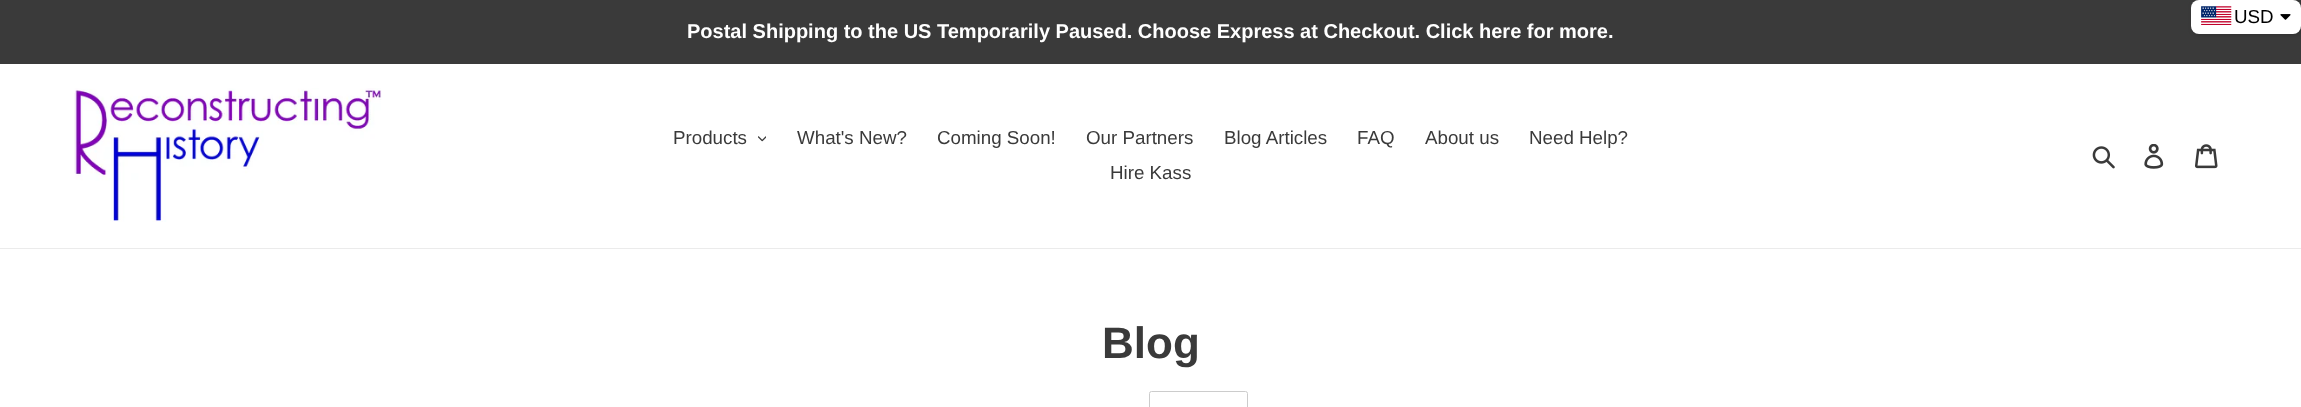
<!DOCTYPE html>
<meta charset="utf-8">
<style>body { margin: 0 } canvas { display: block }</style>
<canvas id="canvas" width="2301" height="407"></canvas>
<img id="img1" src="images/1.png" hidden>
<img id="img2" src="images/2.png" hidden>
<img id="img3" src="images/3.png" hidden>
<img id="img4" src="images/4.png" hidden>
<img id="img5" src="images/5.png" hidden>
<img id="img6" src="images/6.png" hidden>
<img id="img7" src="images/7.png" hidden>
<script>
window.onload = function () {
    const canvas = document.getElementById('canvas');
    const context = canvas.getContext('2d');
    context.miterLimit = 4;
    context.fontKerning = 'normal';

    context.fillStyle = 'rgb(255, 255, 255)';
    context.fillRect(0, 0, 2301, 407);
    context.fillStyle = 'rgb(58, 58, 58)';
    context.fillRect(0, 0, 2301, 64);
    context.fillStyle = 'rgba(0, 0, 0, 0.2)';
    context.filter = 'blur(2.5px)';
    context.beginPath();
    context.roundRect(2193, 1, 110, 34, 8);
    context.fill();
    context.filter = 'none';
    context.fillStyle = 'rgb(255, 255, 255)';
    context.beginPath();
    context.roundRect(2191, 0, 110, 34, 8);
    context.fill();
    context.drawImage(document.getElementById('img1'), 2201, 6, 31, 19);
    context.drawImage(document.getElementById('img2'), 2280, 14, 11, 6);
    context.fillStyle = 'rgb(235, 235, 235)';
    context.fillRect(0, 248, 2301, 1);
    context.drawImage(document.getElementById('img3'), 74, 88, 308, 134);
    context.drawImage(document.getElementById('img4'), 758, 136, 8, 6);
    context.drawImage(document.getElementById('img5'), 2092, 146, 23, 23);
    context.drawImage(document.getElementById('img6'), 2144, 144, 20, 25);
    context.drawImage(document.getElementById('img7'), 2195, 144, 23, 25);
    context.beginPath();
    context.roundRect(1149.5, 391.5, 98, 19, 2);
    context.strokeStyle = 'rgb(204, 204, 204)';
    context.stroke();
    context.font = '18.75px Liberation Sans';
    context.fillStyle = 'rgb(0, 0, 0)';
    context.fillText('USD', 2234, 23);
    context.font = 'bold 20px Liberation Sans';
    context.fillStyle = 'rgb(255, 255, 255)';
    context.fillText('Postal Shipping to the US Temporarily Paused. Choose Express at Checkout. Click here for more.', 687, 38);
    context.font = '18.75px Liberation Sans';
    context.fillStyle = 'rgb(58, 58, 58)';
    context.fillText('Products', 673, 144);
    context.fillText('What\'s New?', 797, 144);
    context.fillText('Coming Soon!', 937, 144);
    context.fillText('Our Partners', 1086, 144);
    context.fillText('Blog Articles', 1224, 144);
    context.fillText('FAQ', 1357, 144);
    context.fillText('About us', 1425, 144);
    context.fillText('Need Help?', 1529, 144);
    context.fillText('Hire Kass', 1110, 179);
    context.font = 'bold 44px Liberation Sans';
    context.fillText('Blog', 1102, 358);
};
</script>
